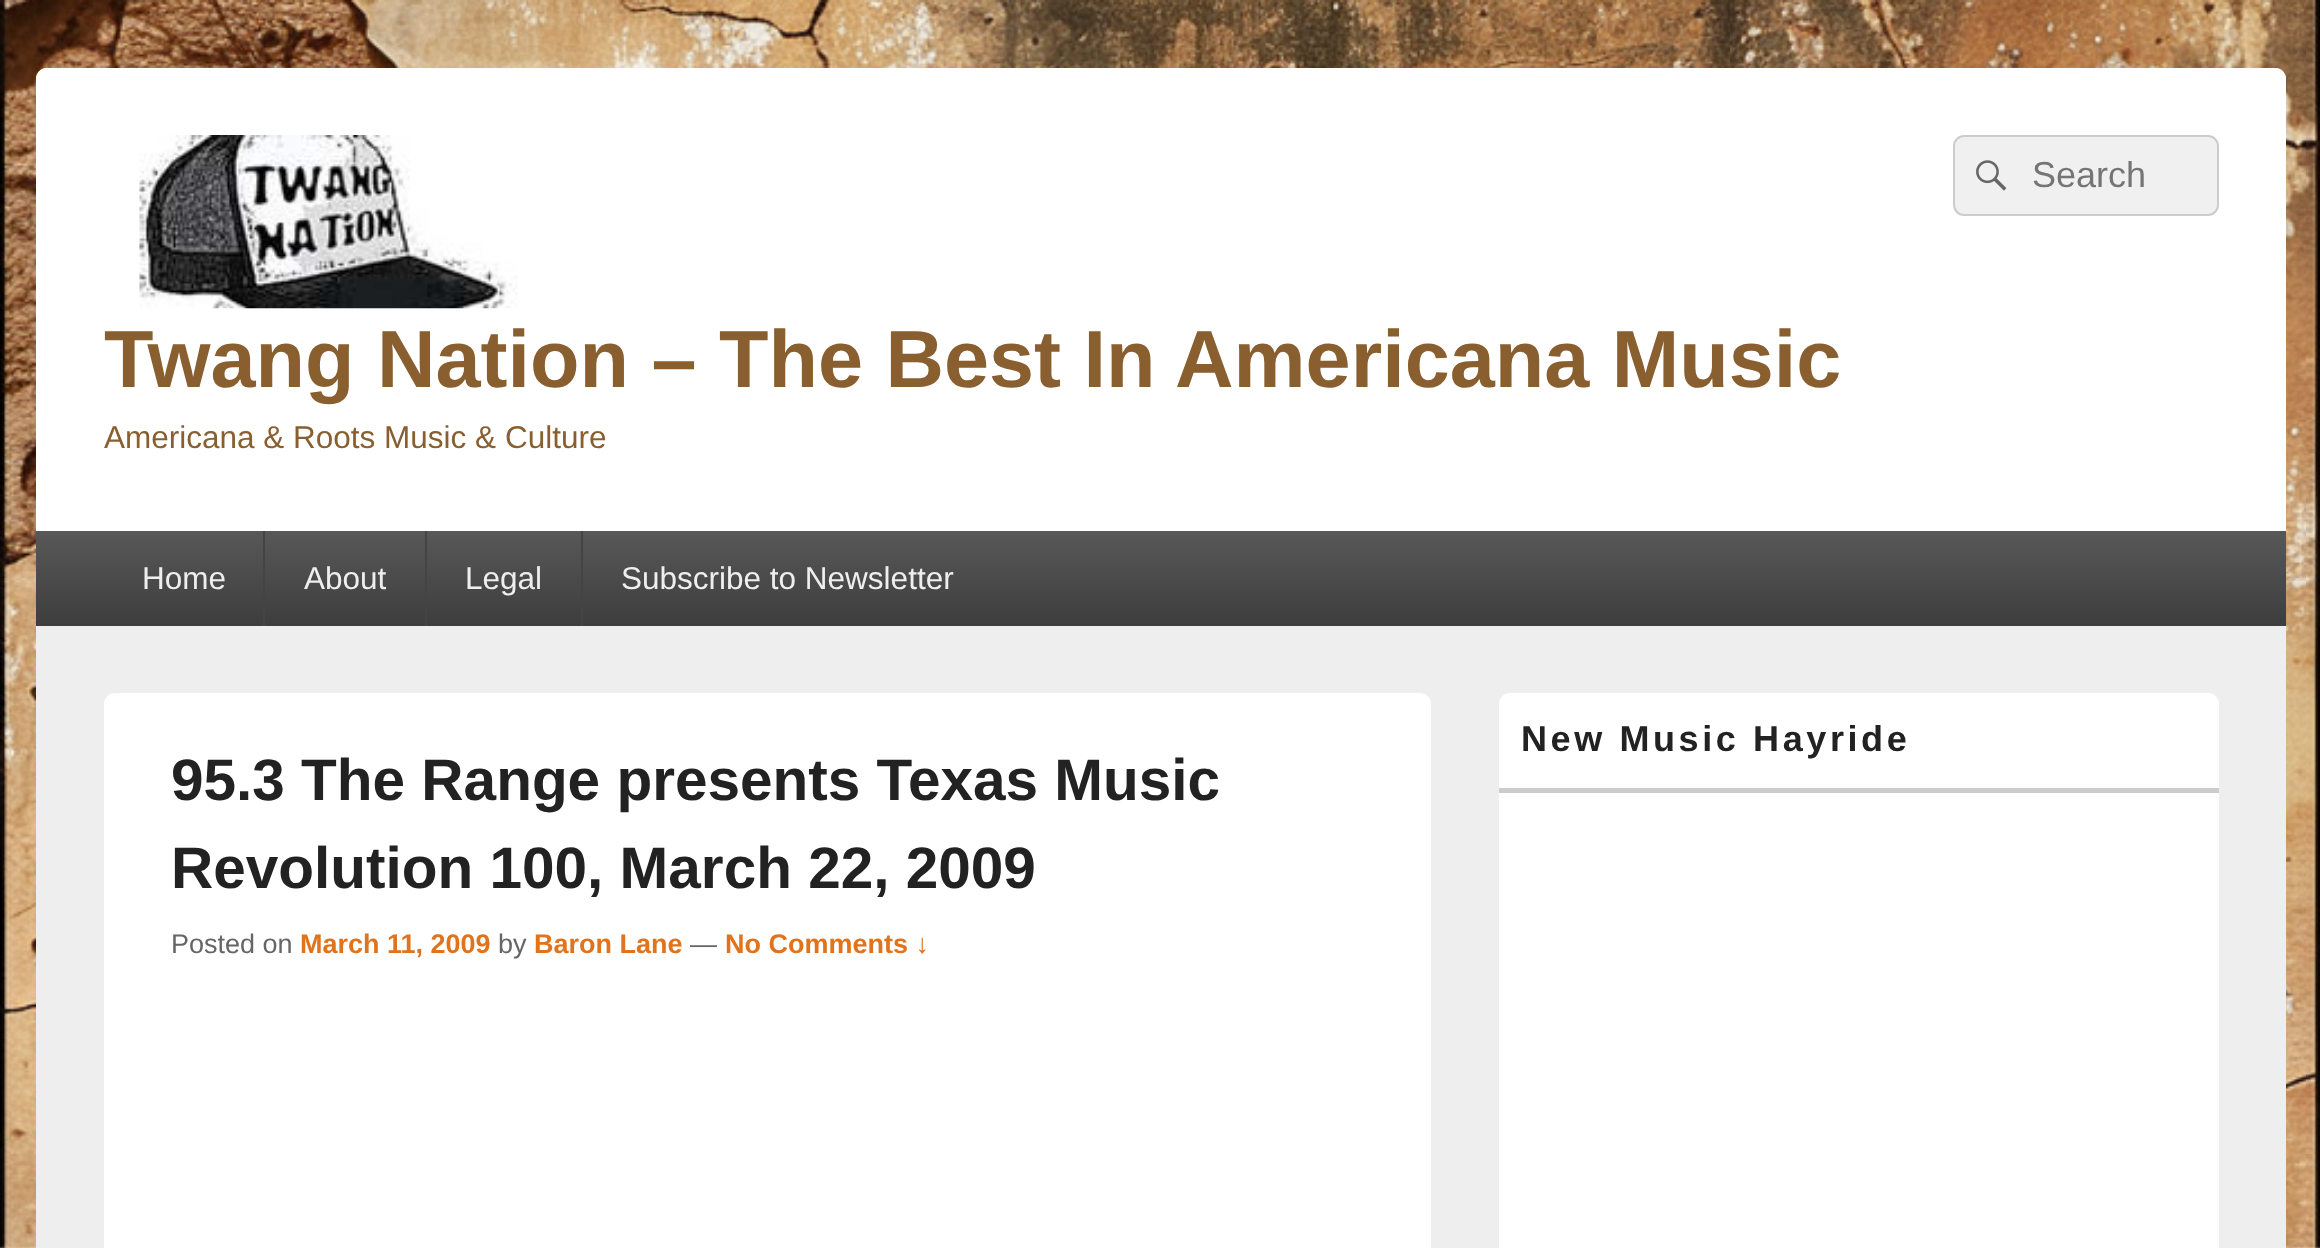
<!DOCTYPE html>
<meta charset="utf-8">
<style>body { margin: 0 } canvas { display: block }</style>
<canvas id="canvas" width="2320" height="1248"></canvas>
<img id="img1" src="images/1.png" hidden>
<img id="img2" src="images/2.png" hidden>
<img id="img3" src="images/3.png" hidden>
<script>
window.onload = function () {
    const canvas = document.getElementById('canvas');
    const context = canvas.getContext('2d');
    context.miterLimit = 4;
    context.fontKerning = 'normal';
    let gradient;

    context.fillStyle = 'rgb(255, 255, 255)';
    context.fillRect(0, 0, 2320, 1248);
    context.drawImage(document.getElementById('img1'), 0, 0, 2320, 1248);
    context.fillStyle = 'rgb(238, 238, 238)';
    context.beginPath();
    context.roundRect(36, 68, 2250, 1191, 11);
    context.fill();
    context.fillStyle = 'rgb(255, 255, 255)';
    context.beginPath();
    context.roundRect(36, 68, 2250, 558, [11, 11, 0, 0]);
    context.fill();
    context.fillStyle = 'rgb(240, 240, 240)';
    context.beginPath();
    context.roundRect(1954, 136, 264, 79, 10);
    context.fill();
    context.strokeStyle = 'rgb(204, 204, 204)';
    context.lineWidth = 2;
    context.stroke();
    context.drawImage(document.getElementById('img2'), 1976, 160, 31, 31);
    context.drawImage(document.getElementById('img3'), 139, 135, 379, 174);
    gradient = context.createLinearGradient(1161, 531, 1161, 626);
    gradient.addColorStop(0, 'rgb(88, 88, 88)');
    gradient.addColorStop(1, 'rgb(61, 61, 61)');
    context.fillStyle = gradient;
    context.fillRect(36, 531, 2250, 95);
    context.fillStyle = 'rgb(68, 68, 68)';
    context.fillRect(263, 531, 2, 95);
    context.fillRect(425, 531, 2, 95);
    context.fillRect(581, 531, 2, 95);
    context.fillStyle = 'rgb(255, 255, 255)';
    context.beginPath();
    context.roundRect(1499, 693, 720, 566, 11);
    context.fill();
    context.fillStyle = 'rgb(204, 204, 204)';
    context.fillRect(1499, 788, 720, 5);
    context.fillStyle = 'rgb(255, 255, 255)';
    context.beginPath();
    context.roundRect(104, 693, 1327, 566, 11);
    context.fill();
    context.font = '36px Liberation Sans';
    context.fillStyle = 'rgb(117, 117, 117)';
    context.fillText('Search', 2032, 187);
    context.font = 'bold 81px Liberation Sans';
    context.fillStyle = 'rgb(137, 95, 48)';
    context.fillText('Twang Nation – The Best In Americana Music', 104, 387);
    context.font = '31.5px Liberation Sans';
    context.fillText('Americana & Roots Music & Culture', 104, 448);
    context.fillStyle = 'rgb(238, 238, 238)';
    context.fillText('Home', 142, 589);
    context.fillText('About', 304, 589);
    context.fillText('Legal', 465, 589);
    context.fillText('Subscribe to Newsletter', 621, 589);
    context.letterSpacing = '3.6px';
    context.font = 'bold 36px Liberation Sans';
    context.fillStyle = 'rgb(34, 34, 34)';
    context.fillText('New Music Hayride', 1521, 751);
    context.letterSpacing = '0px';
    context.font = 'bold 58.5px Liberation Sans';
    context.fillText('95.3 The Range presents Texas Music', 171, 800);
    context.fillText('Revolution 100, March 22, 2009', 171, 888);
    context.font = '27px Liberation Sans';
    context.fillStyle = 'rgb(102, 102, 102)';
    context.fillText('Posted on', 171, 953);
    context.font = 'bold 27px Liberation Sans';
    context.fillStyle = 'rgb(224, 115, 27)';
    context.fillText('March 11, 2009', 300, 953);
    context.font = '27px Liberation Sans';
    context.fillStyle = 'rgb(102, 102, 102)';
    context.fillText('by', 498, 953);
    context.font = 'bold 27px Liberation Sans';
    context.fillStyle = 'rgb(224, 115, 27)';
    context.fillText('Baron Lane', 534, 953);
    context.font = '27px Liberation Sans';
    context.fillStyle = 'rgb(102, 102, 102)';
    context.fillText('—', 690, 953);
    context.font = 'bold 27px Liberation Sans';
    context.fillStyle = 'rgb(224, 115, 27)';
    context.fillText('No Comments ↓', 725, 953);
};
</script>
